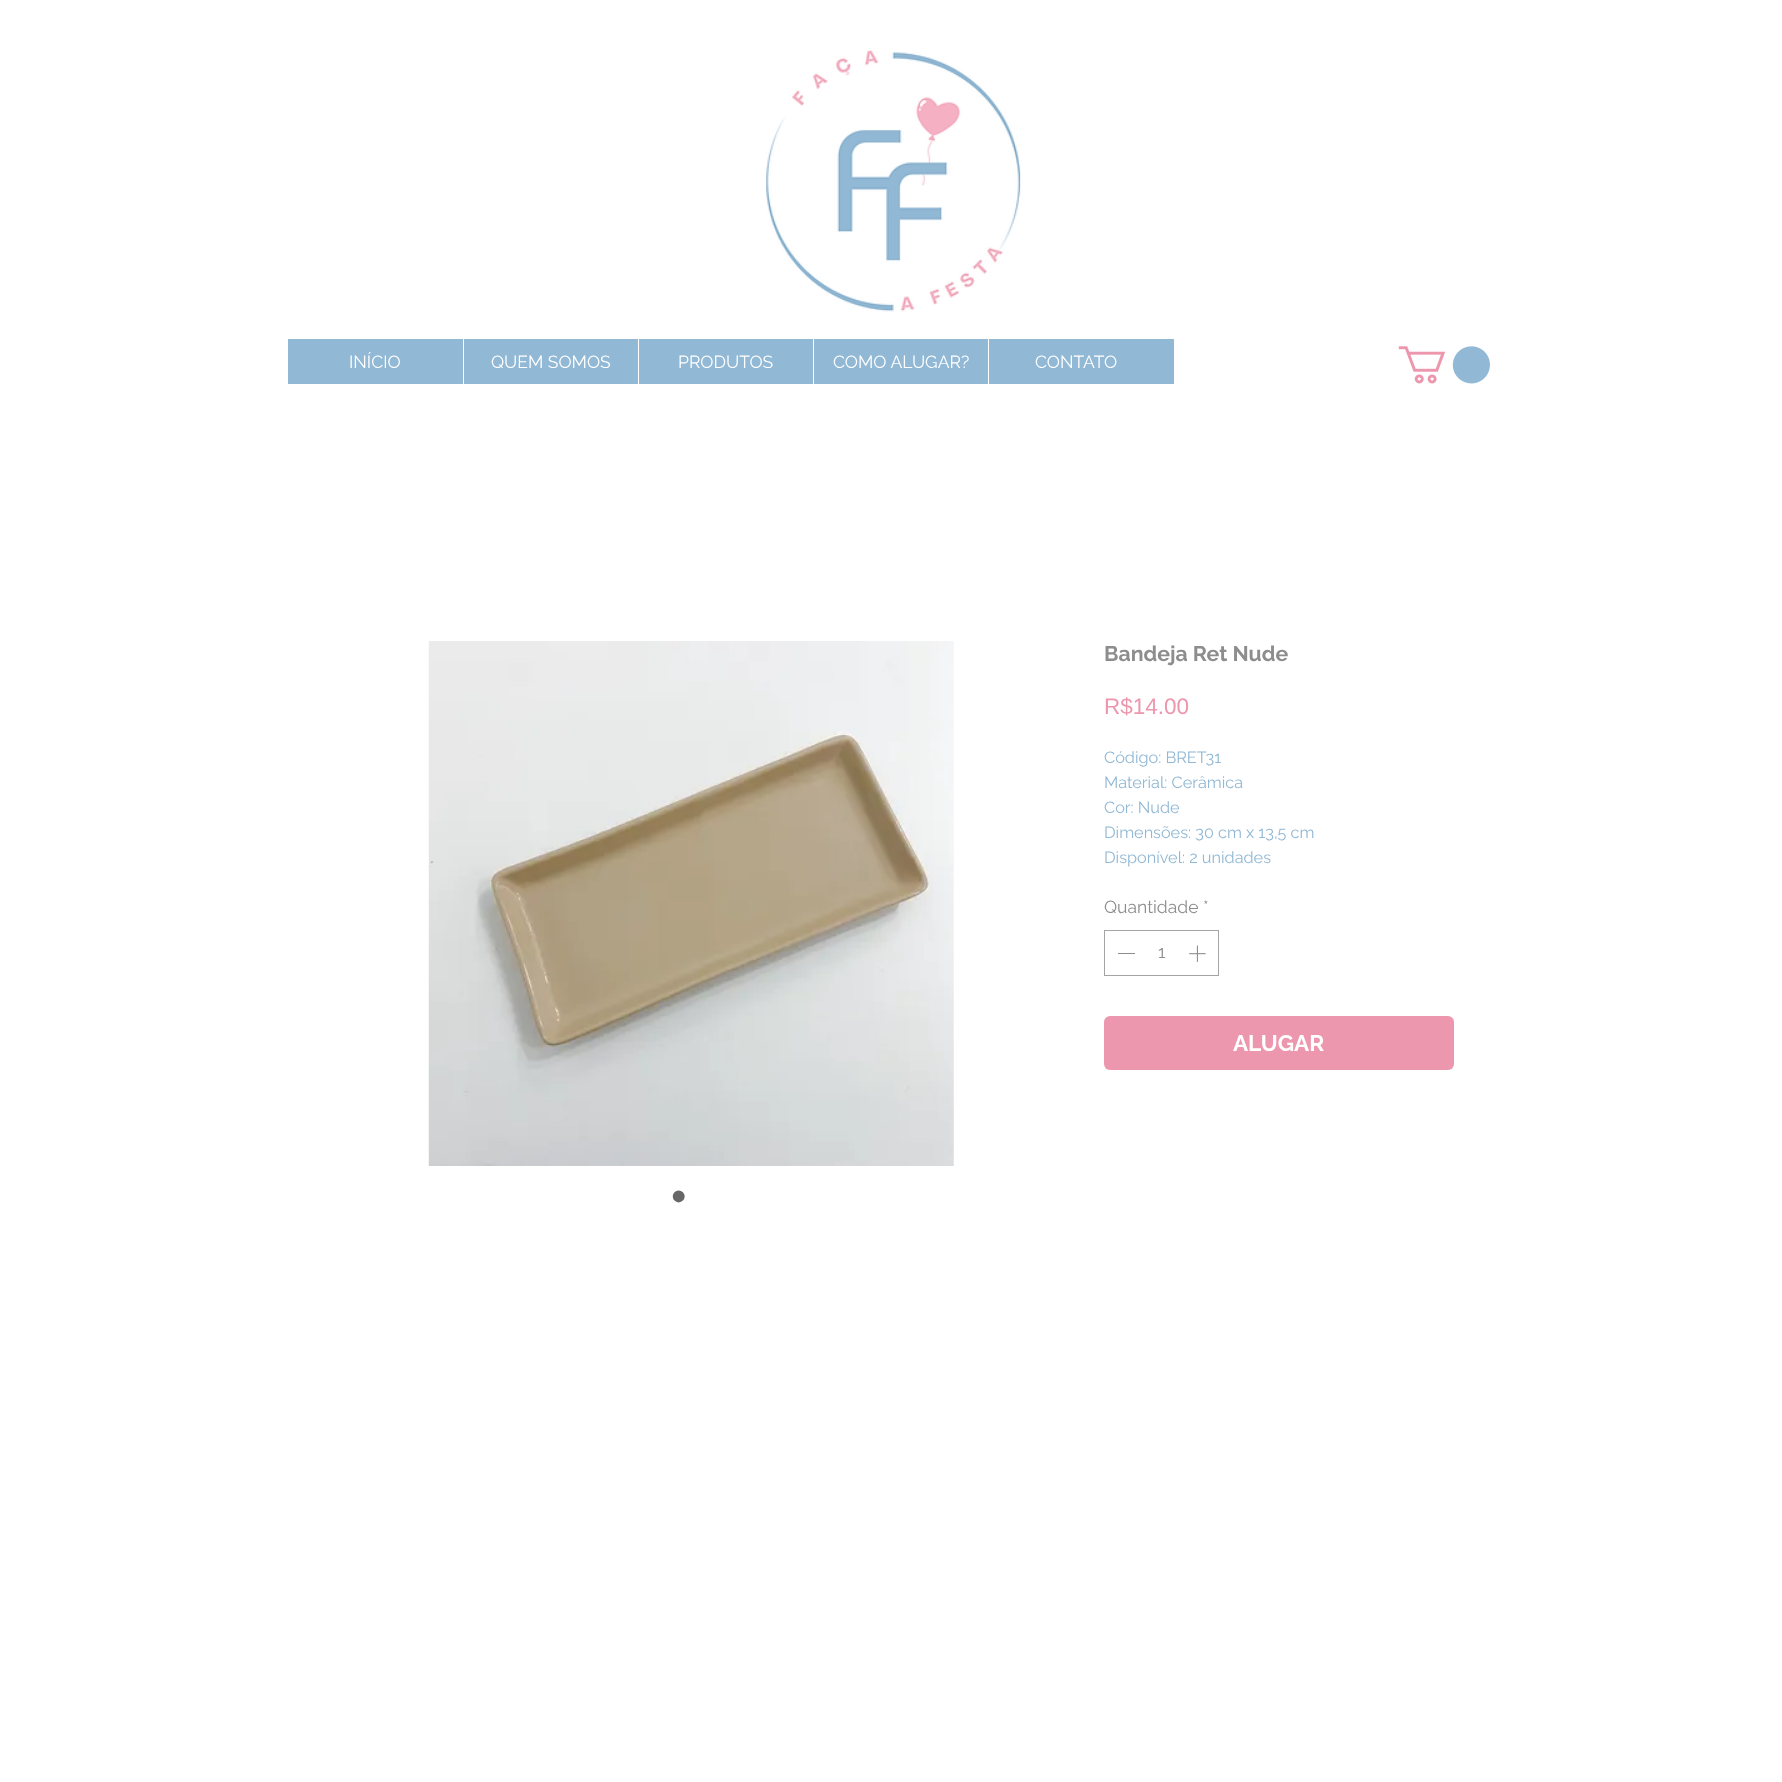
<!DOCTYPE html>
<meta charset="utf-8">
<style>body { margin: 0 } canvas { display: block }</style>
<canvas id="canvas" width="1782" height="1782"></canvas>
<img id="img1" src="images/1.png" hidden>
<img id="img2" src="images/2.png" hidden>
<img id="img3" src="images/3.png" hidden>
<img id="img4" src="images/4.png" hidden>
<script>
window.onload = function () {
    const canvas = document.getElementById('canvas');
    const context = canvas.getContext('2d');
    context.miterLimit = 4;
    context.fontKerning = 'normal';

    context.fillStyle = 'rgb(255, 255, 255)';
    context.fillRect(0, 0, 1782, 1782);
    context.drawImage(document.getElementById('img1'), 766, 50, 255, 262);
    context.fillStyle = 'rgb(145, 184, 212)';
    context.fillRect(288, 339, 886, 45);
    context.fillStyle = 'rgb(255, 255, 255)';
    context.fillRect(463, 339, 1, 45);
    context.fillRect(638, 339, 1, 45);
    context.fillRect(813, 339, 1, 45);
    context.fillRect(988, 339, 1, 45);
    context.drawImage(document.getElementById('img2'), 1398, 346, 92, 38);
    context.strokeStyle = 'rgb(164, 164, 164)';
    context.strokeRect(1104.5, 930.5, 114, 45);
    context.fillStyle = 'rgb(141, 141, 141)';
    context.fillRect(1118, 953, 17, 1);
    context.drawImage(document.getElementById('img3'), 1189, 945, 17, 17);
    context.fillStyle = 'rgb(237, 151, 174)';
    context.beginPath();
    context.roundRect(1104, 1016, 350, 54, 6);
    context.fill();
    context.drawImage(document.getElementById('img4'), 428, 641, 526, 525);
    context.font = '17.5px Raleway';
    context.fillStyle = 'rgb(255, 255, 255)';
    context.fillText('INÍCIO', 349, 368);
    context.fillText('QUEM SOMOS', 491, 368);
    context.fillText('PRODUTOS', 678, 368);
    context.fillText('COMO ALUGAR?', 833, 368);
    context.fillText('CONTATO', 1035, 368);
    context.font = 'bold 21.25px Raleway';
    context.fillStyle = 'rgb(141, 141, 141)';
    context.fillText('Bandeja Ret Nude', 1104, 661);
    context.font = '22.5px Liberation Sans';
    context.fillStyle = 'rgb(237, 151, 174)';
    context.fillText('R$14.00', 1104, 714);
    context.font = '16.25px Raleway';
    context.fillStyle = 'rgb(145, 184, 212)';
    context.fillText('Código: BRET31', 1104, 763);
    context.fillText('Material: Cerâmica', 1104, 788);
    context.fillText('Cor: Nude', 1104, 813);
    context.fillText('Dimensões: 30 cm x 13,5 cm', 1104, 838);
    context.fillText('Disponível: 2 unidades', 1104, 863);
    context.font = '17.5px Raleway';
    context.fillStyle = 'rgb(141, 141, 141)';
    context.fillText('Quantidade', 1104, 913);
    context.fillText('*', 1203, 913);
    context.fillText('1', 1158, 958);
    context.font = 'bold 22.5px Raleway';
    context.fillStyle = 'rgb(255, 255, 255)';
    context.fillText('ALUGAR', 1233, 1051);
    context.font = '44px Liberation Sans';
    context.fillStyle = 'rgb(103, 103, 103)';
    context.fillText('•', 671, 1211);
};
</script>
